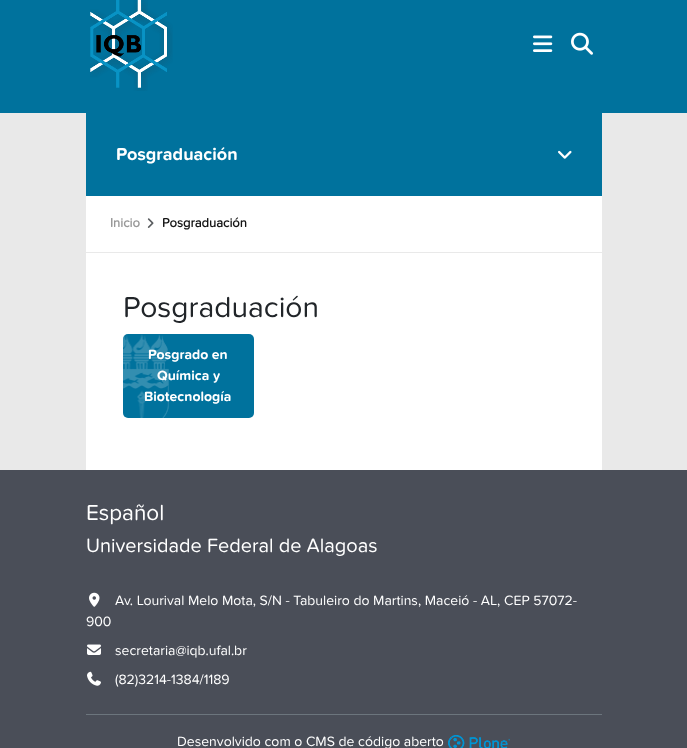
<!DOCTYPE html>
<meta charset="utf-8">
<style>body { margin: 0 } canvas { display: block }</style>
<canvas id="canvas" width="687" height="748"></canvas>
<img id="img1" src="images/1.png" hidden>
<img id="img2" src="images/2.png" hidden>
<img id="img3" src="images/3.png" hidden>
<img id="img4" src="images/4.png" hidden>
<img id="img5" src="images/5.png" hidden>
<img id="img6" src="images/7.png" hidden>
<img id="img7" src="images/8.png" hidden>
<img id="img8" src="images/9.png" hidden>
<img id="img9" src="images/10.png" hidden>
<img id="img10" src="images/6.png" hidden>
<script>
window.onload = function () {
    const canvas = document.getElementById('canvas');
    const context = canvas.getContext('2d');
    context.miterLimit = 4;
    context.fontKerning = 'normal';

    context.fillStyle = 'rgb(233, 233, 233)';
    context.fillRect(0, 0, 687, 748);
    context.fillStyle = 'rgb(0, 114, 157)';
    context.fillRect(0, 0, 687, 113);
    context.drawImage(document.getElementById('img1'), 90, 0, 83, 91);
    context.drawImage(document.getElementById('img2'), 533, 35, 20, 17);
    context.drawImage(document.getElementById('img3'), 571, 32, 22, 23);
    context.fillStyle = 'rgb(255, 255, 255)';
    context.fillRect(86, 196, 516, 274);
    context.fillStyle = 'rgb(0, 114, 157)';
    context.fillRect(86, 113, 516, 83);
    context.drawImage(document.getElementById('img4'), 558, 150, 14, 9);
    context.fillStyle = 'rgb(233, 233, 233)';
    context.fillRect(86, 252, 516, 1);
    context.drawImage(document.getElementById('img5'), 147, 218, 7, 10);
    context.fillStyle = 'rgb(0, 114, 157)';
    context.beginPath();
    context.roundRect(123, 334, 131, 84, 5);
    context.fill();
    context.fillStyle = 'rgb(74, 78, 88)';
    context.fillRect(0, 470, 687, 278);
    context.drawImage(document.getElementById('img6'), 89, 592, 11, 15);
    context.drawImage(document.getElementById('img7'), 87, 644, 14, 11);
    context.drawImage(document.getElementById('img8'), 87, 671, 14, 15);
    context.fillStyle = 'rgb(108, 117, 125)';
    context.fillRect(86, 714, 516, 1);
    context.drawImage(document.getElementById('img9'), 448, 735, 62, 13);
    context.font = 'bold 18px "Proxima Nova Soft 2"';
    context.fillStyle = 'rgb(255, 255, 255)';
    context.fillText('Posgraduación', 116, 160);
    context.font = 'bold 13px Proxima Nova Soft';
    context.fillStyle = 'rgb(152, 152, 152)';
    context.fillText('Inicio', 110, 227);
    context.fillStyle = 'rgb(21, 21, 21)';
    context.fillText('Posgraduación', 162, 227);
    context.font = '30px Proxima Nova Soft';
    context.fillStyle = 'rgb(33, 37, 41)';
    context.fillText('Posgraduación', 123, 317);
    context.font = 'bold 14px "Proxima Nova Soft 2"';
    context.fillStyle = 'rgb(255, 255, 255)';
    context.fillText('Posgrado en', 148, 359);
    context.fillText('Química y', 157, 380);
    context.fillText('Biotecnología', 144, 401);
    context.drawImage(document.getElementById('img10'), 123, 334, 46, 84);
    context.font = '22.5px Proxima Nova Soft';
    context.fillText('Español', 86, 520);
    context.font = '20px Proxima Nova Soft';
    context.fillText('Universidade Federal de Alagoas', 86, 552);
    context.font = '14px Proxima Nova Soft';
    context.fillText('Av. Lourival Melo Mota, S/N - Tabuleiro do Martins, Maceió - AL, CEP 57072-', 115, 605);
    context.fillText('900', 86, 626);
    context.fillText('secretaria@iqb.ufal.br', 115, 655);
    context.fillText('(82)3214-1384/1189', 115, 684);
    context.fillText('Desenvolvido com o CMS de código aberto', 177, 746);
};
</script>
